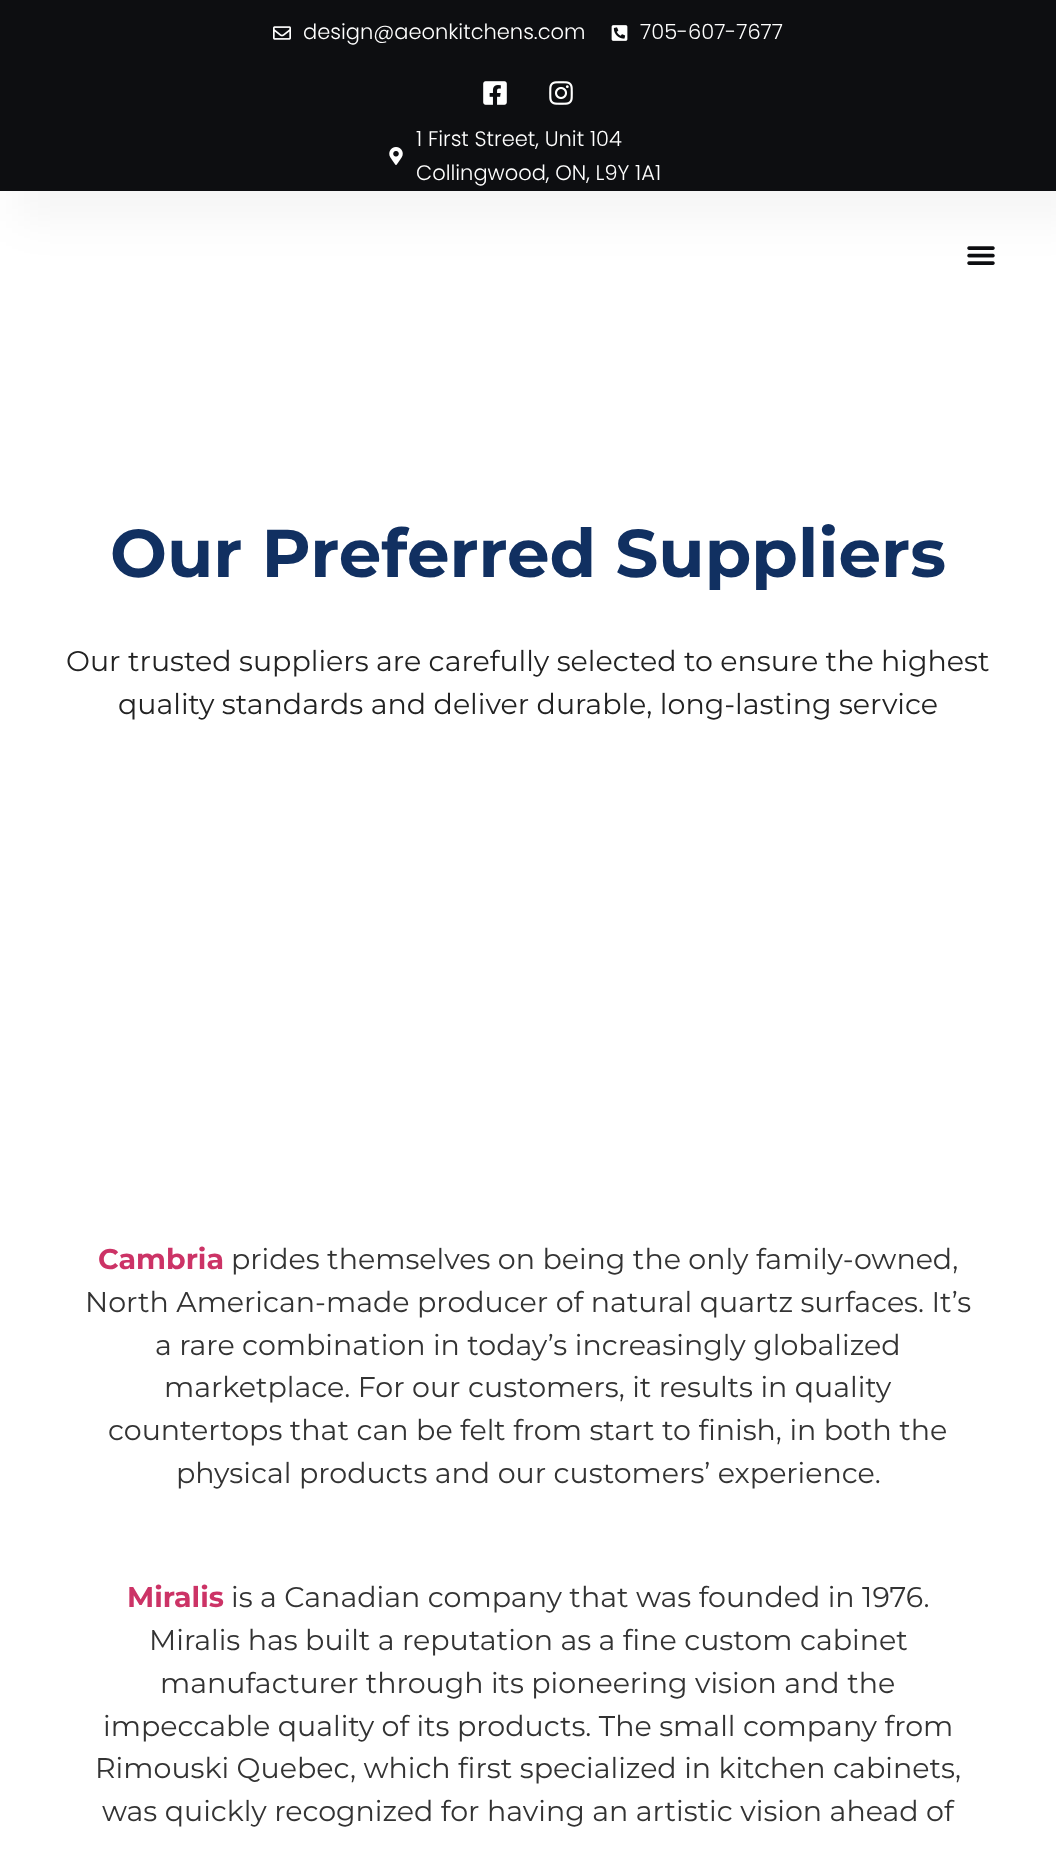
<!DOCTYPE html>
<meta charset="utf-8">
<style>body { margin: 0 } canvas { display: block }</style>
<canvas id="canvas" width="1056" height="1853"></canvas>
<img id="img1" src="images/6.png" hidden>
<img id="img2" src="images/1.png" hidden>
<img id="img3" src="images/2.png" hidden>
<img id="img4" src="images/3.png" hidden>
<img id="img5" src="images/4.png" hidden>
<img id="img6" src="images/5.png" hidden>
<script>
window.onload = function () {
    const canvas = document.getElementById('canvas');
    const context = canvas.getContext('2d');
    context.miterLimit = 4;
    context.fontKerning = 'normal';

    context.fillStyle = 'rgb(255, 255, 255)';
    context.fillRect(0, 0, 1056, 1853);
    context.drawImage(document.getElementById('img1'), 967, 246, 28, 19);
    context.fillStyle = 'rgba(0, 0, 0, 0.04)';
    context.filter = 'blur(22.5px)';
    context.beginPath();
    context.rect(15, 15, 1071, 206);
    context.fill();
    context.filter = 'none';
    context.fillStyle = 'rgb(13, 14, 17)';
    context.fillRect(0, 0, 1056, 191);
    context.drawImage(document.getElementById('img2'), 273, 26, 18, 14);
    context.drawImage(document.getElementById('img3'), 611, 25, 17, 16);
    context.drawImage(document.getElementById('img4'), 483, 81, 24, 24);
    context.drawImage(document.getElementById('img5'), 549, 81, 24, 24);
    context.drawImage(document.getElementById('img6'), 389, 147, 14, 18);
    context.font = '300 21px Poppins';
    context.fillStyle = 'rgb(255, 255, 255)';
    context.fillText('design@aeonkitchens.com', 303, 39);
    context.fillText('705-607-7677', 640, 39);
    context.fillText('1 First Street, Unit 104', 416, 146);
    context.fillText('Collingwood, ON, L9Y 1A1', 416, 180);
    context.font = 'bold 67.5px Montserrat';
    context.fillStyle = 'rgb(17, 48, 97)';
    context.fillText('Our Preferred Suppliers', 110, 577);
    context.font = '28.5px Montserrat';
    context.fillStyle = 'rgb(34, 34, 34)';
    context.fillText('Our trusted suppliers are carefully selected to ensure the highest', 66, 671);
    context.fillText('quality standards and deliver durable, long-lasting service', 118, 714);
    context.font = 'bold 28.5px Montserrat';
    context.fillStyle = 'rgb(204, 51, 102)';
    context.fillText('Cambria', 98, 1269);
    context.font = '28.5px Montserrat';
    context.fillStyle = 'rgb(51, 51, 51)';
    context.fillText('prides themselves on being the only family-owned,', 231, 1269);
    context.fillText('North American-made producer of natural quartz surfaces. It’s', 85, 1312);
    context.fillText('a rare combination in today’s increasingly globalized', 155, 1355);
    context.fillText('marketplace. For our customers, it results in quality', 164, 1397);
    context.fillText('countertops that can be felt from start to finish, in both the', 108, 1440);
    context.fillText('physical products and our customers’ experience.', 176, 1483);
    context.font = 'bold 28.5px Montserrat';
    context.fillStyle = 'rgb(204, 51, 102)';
    context.fillText('Miralis', 127, 1607);
    context.font = '28.5px Montserrat';
    context.fillStyle = 'rgb(51, 51, 51)';
    context.fillText('is a Canadian company that was founded in 1976.', 231, 1607);
    context.fillText('Miralis has built a reputation as a fine custom cabinet', 149, 1650);
    context.fillText('manufacturer through its pioneering vision and the', 160, 1693);
    context.fillText('impeccable quality of its products. The small company from', 103, 1736);
    context.fillText('Rimouski Quebec, which first specialized in kitchen cabinets,', 95, 1778);
    context.fillText('was quickly recognized for having an artistic vision ahead of', 102, 1821);
};
</script>
